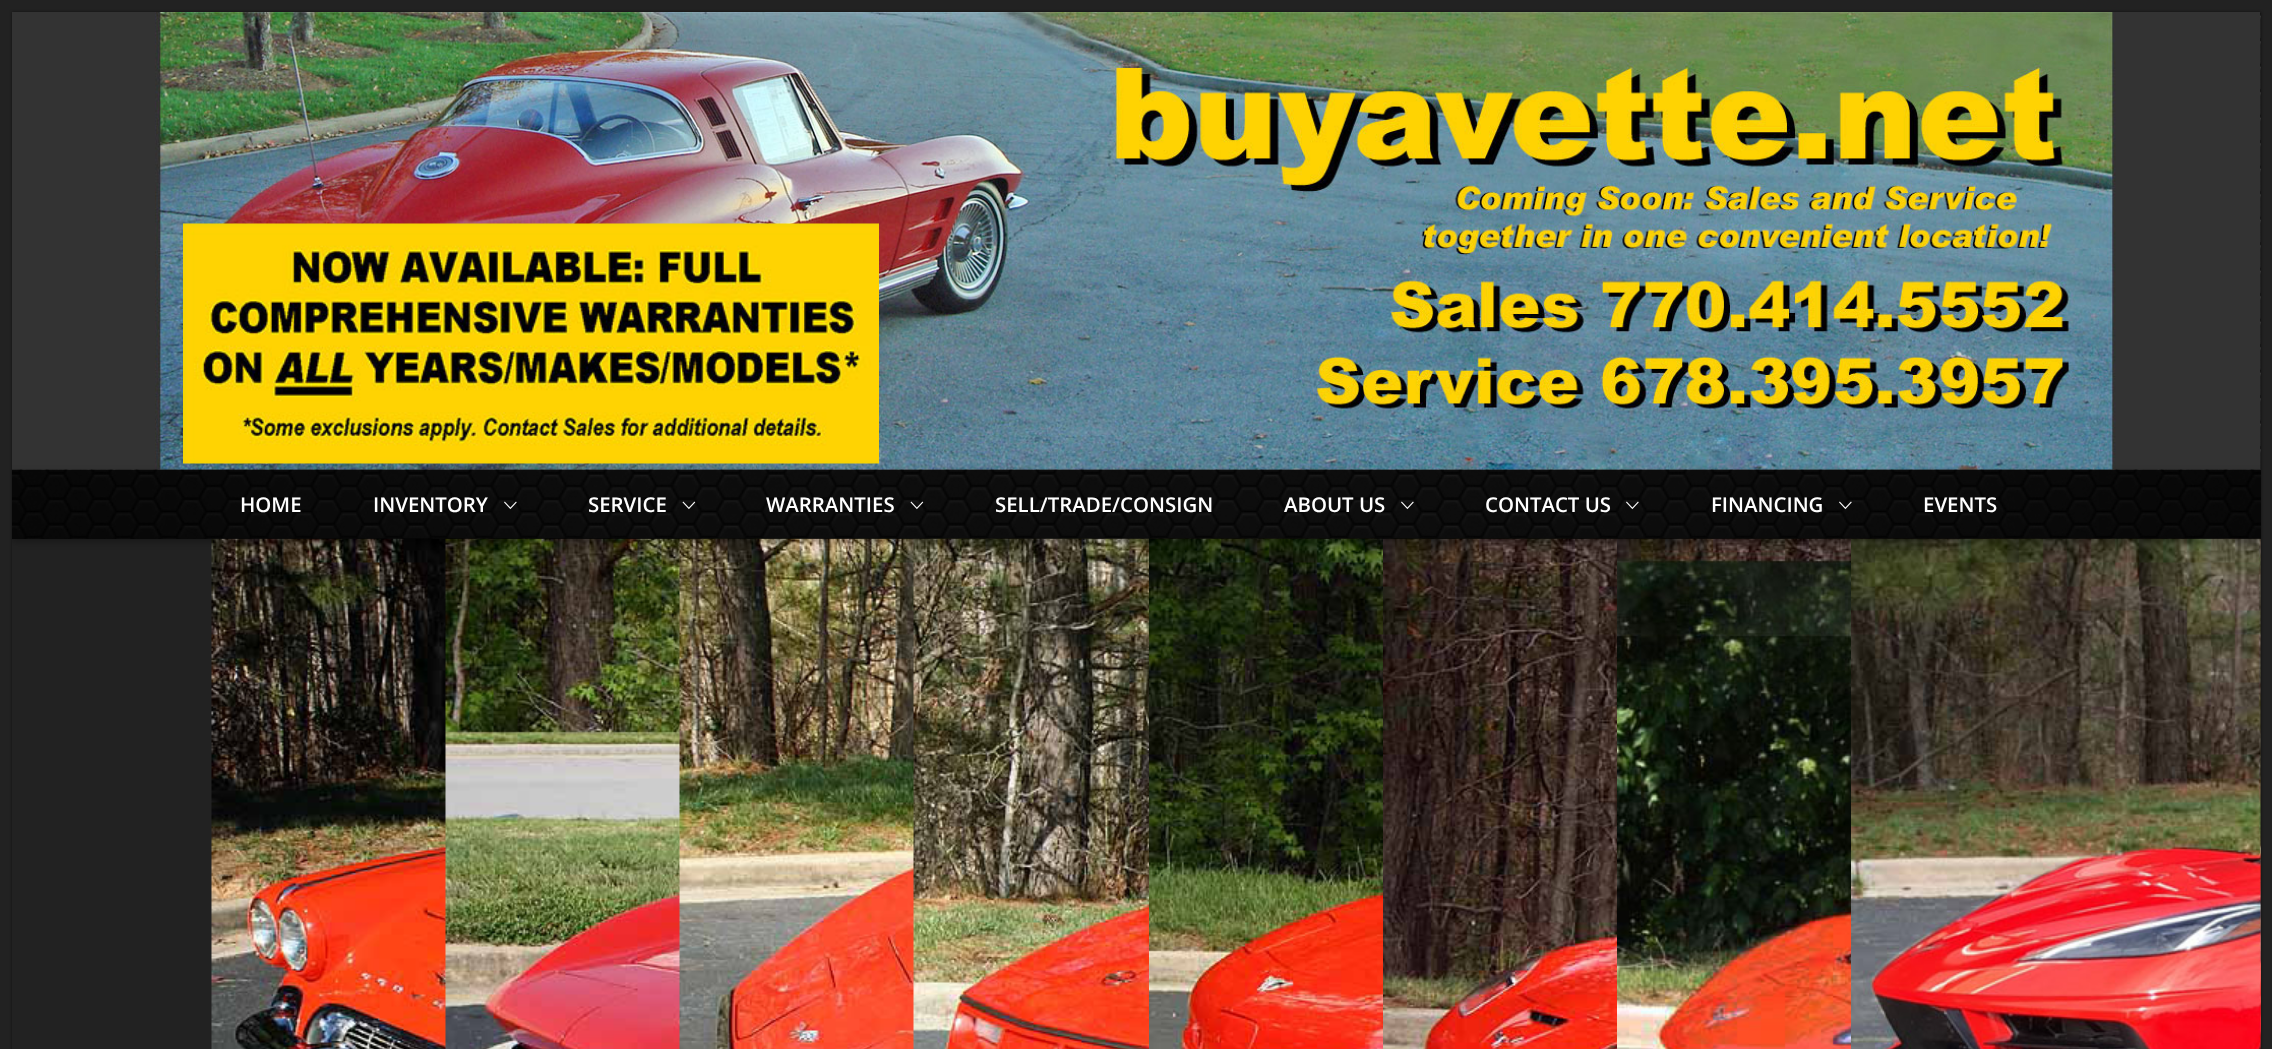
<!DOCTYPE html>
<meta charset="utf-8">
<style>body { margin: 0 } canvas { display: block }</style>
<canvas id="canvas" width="2272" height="1049"></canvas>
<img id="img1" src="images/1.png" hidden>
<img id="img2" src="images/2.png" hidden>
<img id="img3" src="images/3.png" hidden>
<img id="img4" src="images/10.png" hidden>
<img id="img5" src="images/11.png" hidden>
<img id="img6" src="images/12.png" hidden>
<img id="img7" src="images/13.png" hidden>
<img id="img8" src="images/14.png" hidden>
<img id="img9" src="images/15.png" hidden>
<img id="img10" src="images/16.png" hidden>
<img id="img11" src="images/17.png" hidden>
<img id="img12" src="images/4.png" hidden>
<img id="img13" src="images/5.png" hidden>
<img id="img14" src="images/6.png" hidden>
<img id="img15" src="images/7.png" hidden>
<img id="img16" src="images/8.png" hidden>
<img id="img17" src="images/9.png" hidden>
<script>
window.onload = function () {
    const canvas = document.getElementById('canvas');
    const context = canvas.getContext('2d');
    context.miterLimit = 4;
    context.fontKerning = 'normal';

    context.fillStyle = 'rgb(34, 34, 34)';
    context.fillRect(0, 0, 2272, 1049);
    context.fillStyle = 'rgba(0, 0, 0, 0.5)';
    context.filter = 'blur(1.5px)';
    context.beginPath();
    context.rect(12, 12, 2249, 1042);
    context.fill();
    context.filter = 'none';
    context.drawImage(document.getElementById('img1'), 12, 12, 2249, 527);
    context.drawImage(document.getElementById('img2'), 12, 12, 2249, 458);
    context.drawImage(document.getElementById('img3'), 183, 223, 696, 241);
    context.fillStyle = 'rgb(34, 34, 34)';
    context.fillRect(12, 539, 2249, 510);
    context.drawImage(document.getElementById('img4'), 211, 538, 1396, 511);
    context.drawImage(document.getElementById('img5'), 445, 538, 1396, 511);
    context.drawImage(document.getElementById('img6'), 679, 538, 1396, 511);
    context.drawImage(document.getElementById('img7'), 913, 538, 1348, 511);
    context.drawImage(document.getElementById('img8'), 1149, 538, 1112, 511);
    context.drawImage(document.getElementById('img9'), 1383, 538, 878, 511);
    context.drawImage(document.getElementById('img10'), 1617, 538, 644, 511);
    context.drawImage(document.getElementById('img11'), 1851, 538, 410, 511);
    context.save();
    context.beginPath();
    context.rect(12, 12, 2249, 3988);
    context.clip();
    context.beginPath();
    context.moveTo(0, 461);
    context.lineTo(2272, 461);
    context.lineTo(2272, 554);
    context.lineTo(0, 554);
    context.closePath();
    context.moveTo(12, 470);
    context.lineTo(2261, 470);
    context.lineTo(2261, 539);
    context.lineTo(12, 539);
    context.closePath();
    context.clip('evenodd');
    context.fillStyle = 'rgba(0, 0, 0, 0.3)';
    context.filter = 'blur(3.5px)';
    context.beginPath();
    context.rect(12, 473, 2249, 69);
    context.fill();
    context.filter = 'none';
    context.restore();
    context.fillStyle = 'rgba(0, 0, 0, 0.75)';
    context.fillRect(12, 470, 2249, 69);
    context.drawImage(document.getElementById('img12'), 504, 501, 13, 9);
    context.drawImage(document.getElementById('img13'), 682, 501, 14, 9);
    context.drawImage(document.getElementById('img14'), 910, 501, 14, 9);
    context.drawImage(document.getElementById('img15'), 1401, 501, 13, 9);
    context.drawImage(document.getElementById('img16'), 1626, 501, 13, 9);
    context.drawImage(document.getElementById('img17'), 1839, 501, 13, 9);
    context.font = '600 20.4px Open Sans';
    context.fillStyle = 'rgb(255, 255, 255)';
    context.fillText('HOME', 240, 512);
    context.fillText('INVENTORY', 373, 512);
    context.fillText('SERVICE', 588, 512);
    context.fillText('WARRANTIES', 766, 512);
    context.fillText('SELL/TRADE/CONSIGN', 995, 512);
    context.fillText('ABOUT US', 1284, 512);
    context.fillText('CONTACT US', 1485, 512);
    context.fillText('FINANCING', 1711, 512);
    context.fillText('EVENTS', 1923, 512);
};
</script>
